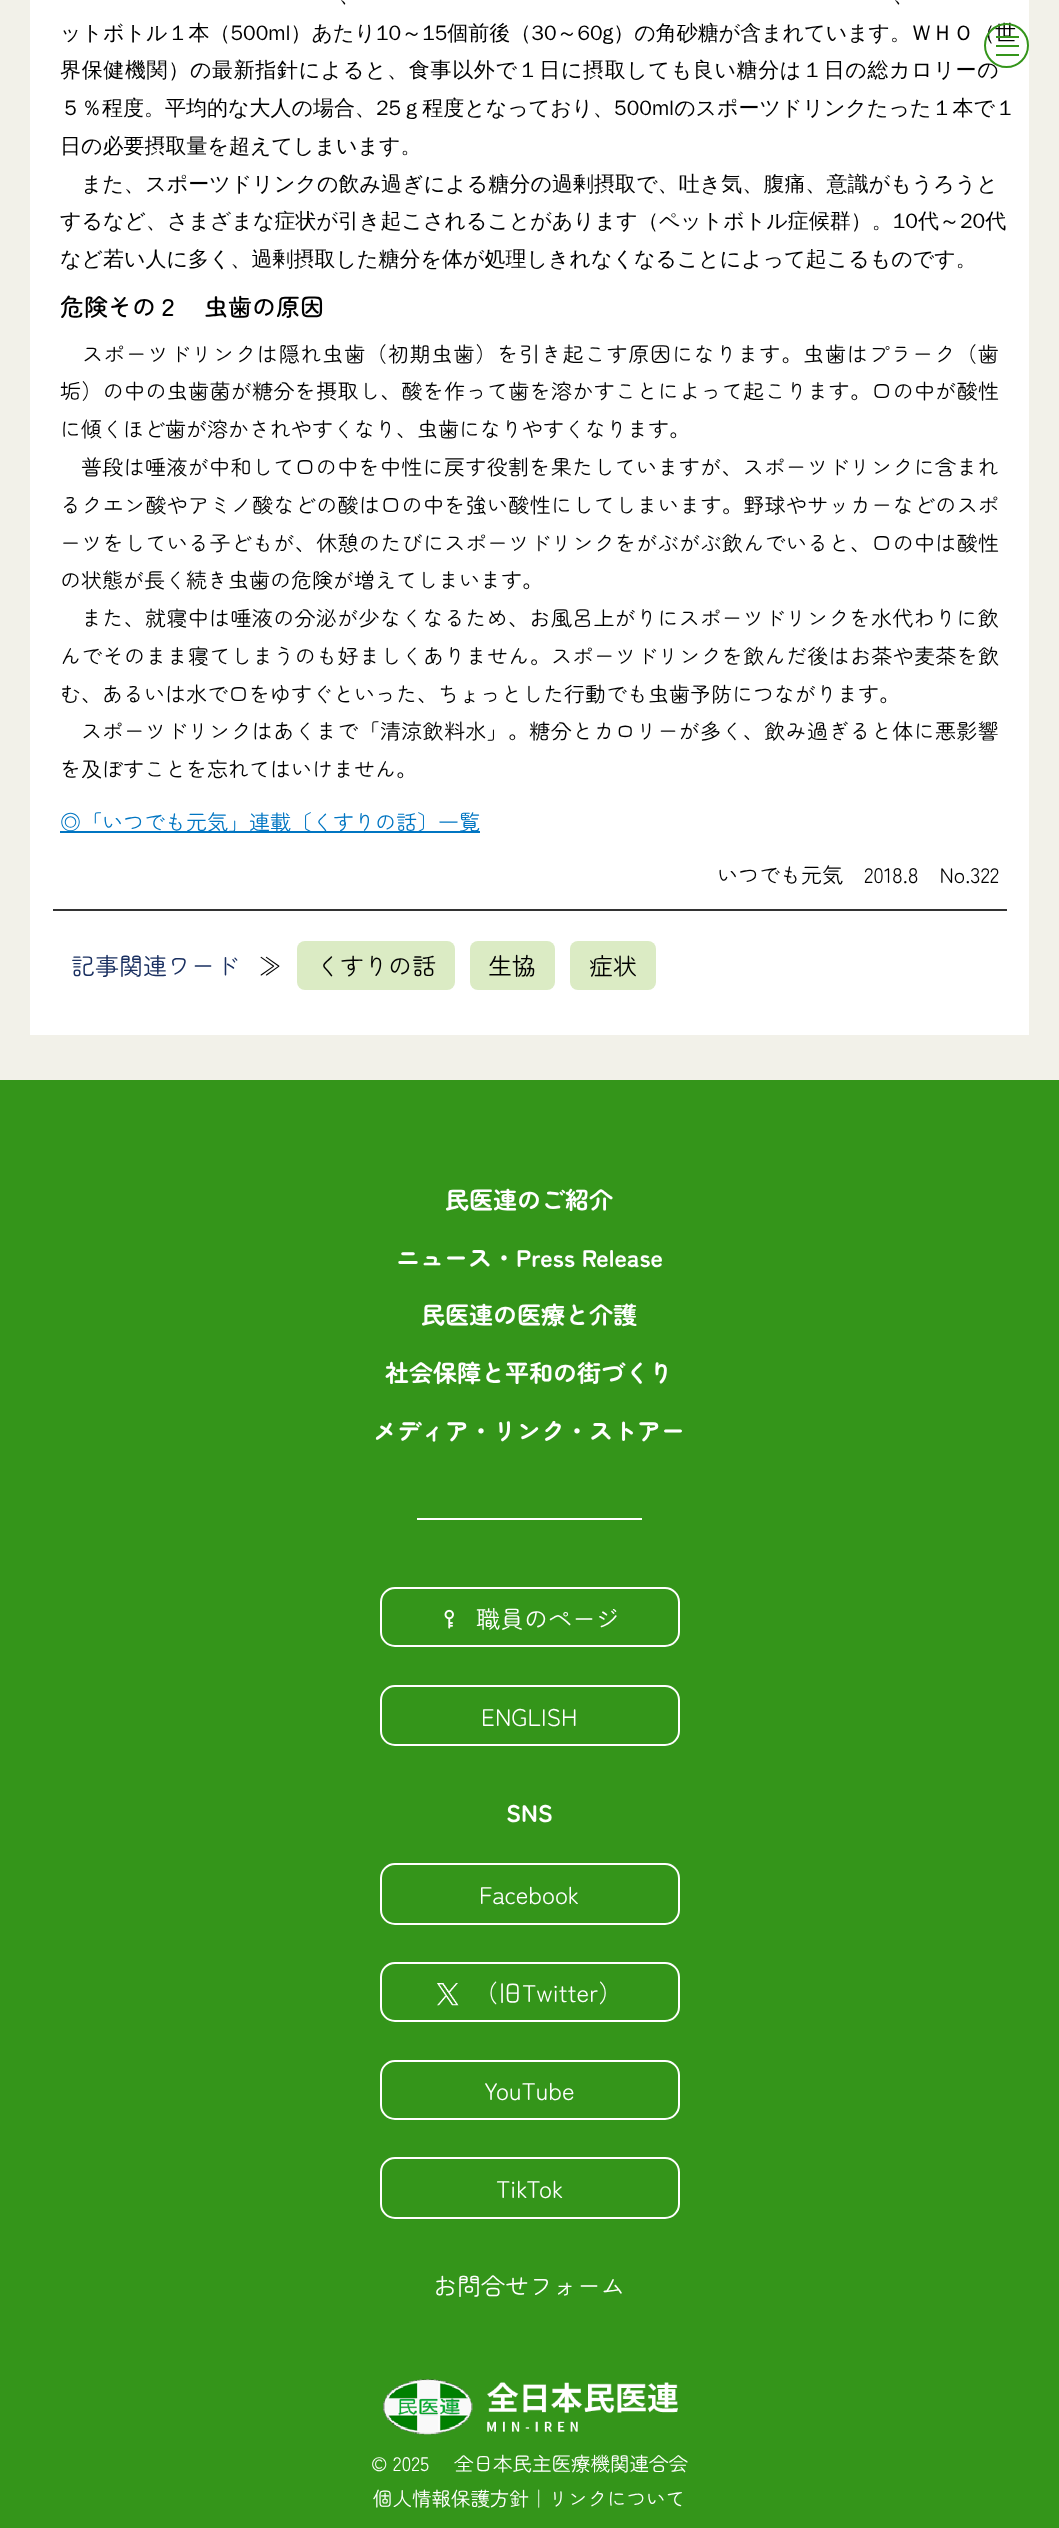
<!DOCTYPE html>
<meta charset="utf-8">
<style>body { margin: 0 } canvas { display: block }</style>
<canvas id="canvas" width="1059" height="2528"></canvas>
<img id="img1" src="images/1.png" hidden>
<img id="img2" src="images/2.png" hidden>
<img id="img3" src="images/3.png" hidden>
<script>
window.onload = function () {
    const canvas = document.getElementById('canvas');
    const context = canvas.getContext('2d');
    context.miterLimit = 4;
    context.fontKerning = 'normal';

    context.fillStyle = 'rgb(242, 241, 233)';
    context.fillRect(0, 0, 1059, 2528);
    context.fillStyle = 'rgb(255, 255, 255)';
    context.fillRect(30, 0, 999, 1035);
    context.fillStyle = 'rgb(0, 117, 194)';
    context.fillRect(60, 831, 420, 2);
    context.fillStyle = 'rgb(51, 51, 51)';
    context.fillRect(53, 909, 954, 2);
    context.fillStyle = 'rgb(219, 235, 196)';
    context.beginPath();
    context.roundRect(297, 941, 158, 49, 8);
    context.fill();
    context.beginPath();
    context.roundRect(470, 941, 85, 49, 8);
    context.fill();
    context.beginPath();
    context.roundRect(570, 941, 86, 49, 8);
    context.fill();
    context.fillStyle = 'rgb(52, 149, 26)';
    context.fillRect(0, 1080, 1059, 1448);
    context.fillStyle = 'rgb(255, 255, 255)';
    context.fillRect(417, 1518, 225, 2);
    context.beginPath();
    context.roundRect(381, 1588, 298, 58, 14);
    context.strokeStyle = 'rgb(255, 255, 255)';
    context.lineWidth = 2;
    context.stroke();
    context.drawImage(document.getElementById('img1'), 444, 1609, 10, 20);
    context.beginPath();
    context.roundRect(381, 1686, 298, 59, 14);
    context.stroke();
    context.beginPath();
    context.roundRect(381, 1864, 298, 60, 14);
    context.stroke();
    context.beginPath();
    context.roundRect(381, 1963, 298, 58, 14);
    context.stroke();
    context.drawImage(document.getElementById('img2'), 437, 1983, 22, 23);
    context.beginPath();
    context.roundRect(381, 2061, 298, 58, 14);
    context.stroke();
    context.beginPath();
    context.roundRect(381, 2158, 298, 60, 14);
    context.stroke();
    context.drawImage(document.getElementById('img3'), 383, 2379, 295, 56);
    context.font = '500 21px WenQuanYi Zen Hei';
    context.fillStyle = 'rgb(0, 0, 0)';
    context.fillText('、', 339, 2);
    context.fillText('、', 893, 2);
    context.fillText('ットボトル１本（500ml）あたり10～15個前後（30～60g）の角砂糖が含まれています。ＷＨＯ（世', 60, 40);
    context.letterSpacing = '0.65px';
    context.fillText('界保健機関）の最新指針によると、食事以外で１日に摂取しても良い糖分は１日の総カロリーの', 60, 77);
    context.letterSpacing = '0px';
    context.fillText('５％程度。平均的な大人の場合、25ｇ程度となっており、500mlのスポーツドリンクたった１本で１', 60, 115);
    context.fillText('日の必要摂取量を超えてしまいます。', 60, 153);
    context.letterSpacing = '0.05px';
    context.fillText('また、スポーツドリンクの飲み過ぎによる糖分の過剰摂取で、吐き気、腹痛、意識がもうろうと', 81, 191);
    context.letterSpacing = '0px';
    context.fillText('するなど、さまざまな症状が引き起こされることがあります（ペットボトル症候群）。10代～20代', 60, 228);
    context.fillText('など若い人に多く、過剰摂取した糖分を体が処理しきれなくなることによって起こるものです。', 60, 266);
    context.font = '500 24px Zen Maru Gothic';
    context.fillText('危険その２　虫歯の原因', 60, 316);
    context.letterSpacing = '0.85px';
    context.font = '21px Zen Maru Gothic';
    context.fillText('スポーツドリンクは隠れ虫歯（初期虫歯）を引き起こす原因になります。虫歯はプラーク（歯', 82, 362);
    context.letterSpacing = '0.35px';
    context.fillText('垢）の中の虫歯菌が糖分を摂取し、酸を作って歯を溶かすことによって起こります。口の中が酸性', 60, 399);
    context.letterSpacing = '0px';
    context.fillText('に傾くほど歯が溶かされやすくなり、虫歯になりやすくなります。', 60, 437);
    context.letterSpacing = '0.35px';
    context.fillText('普段は唾液が中和して口の中を中性に戻す役割を果たしていますが、スポーツドリンクに含まれ', 81, 475);
    context.fillText('るクエン酸やアミノ酸などの酸は口の中を強い酸性にしてしまいます。野球やサッカーなどのスポ', 60, 513);
    context.fillText('ーツをしている子どもが、休憩のたびにスポーツドリンクをがぶがぶ飲んでいると、口の中は酸性', 60, 551);
    context.letterSpacing = '0px';
    context.fillText('の状態が長く続き虫歯の危険が増えてしまいます。', 60, 588);
    context.letterSpacing = '0.35px';
    context.fillText('また、就寝中は唾液の分泌が少なくなるため、お風呂上がりにスポーツドリンクを水代わりに飲', 81, 626);
    context.fillText('んでそのまま寝てしまうのも好ましくありません。スポーツドリンクを飲んだ後はお茶や麦茶を飲', 60, 664);
    context.letterSpacing = '0px';
    context.fillText('む、あるいは水で口をゆすぐといった、ちょっとした行動でも虫歯予防につながります。', 60, 702);
    context.letterSpacing = '0.35px';
    context.fillText('スポーツドリンクはあくまで「清涼飲料水」。糖分とカロリーが多く、飲み過ぎると体に悪影響', 81, 739);
    context.letterSpacing = '0px';
    context.fillText('を及ぼすことを忘れてはいけません。', 60, 777);
    context.fillStyle = 'rgb(0, 117, 194)';
    context.fillText('◎「いつでも元気」連載〔くすりの話〕一覧', 60, 830);
    context.fillStyle = 'rgb(0, 0, 0)';
    context.fillText('いつでも元気　2018.8　No.322', 717, 883);
    context.font = '24px Zen Maru Gothic';
    context.fillStyle = 'rgb(25, 47, 96)';
    context.fillText('記事関連ワード', 71, 975);
    context.fillStyle = 'rgb(0, 0, 0)';
    context.fillText('≫', 258, 975);
    context.fillText('くすりの話', 316, 975);
    context.fillText('生協', 488, 975);
    context.fillText('症状', 589, 975);
    context.beginPath();
    context.arc(1006.5, 45.5, 21.5, 0, 2 * Math.PI);
    context.strokeStyle = 'rgb(52, 149, 26)';
    context.stroke();
    context.fillStyle = 'rgb(52, 149, 26)';
    context.fillRect(996, 36, 23, 2);
    context.fillRect(996, 45, 23, 2);
    context.fillRect(996, 54, 23, 2);
    context.font = 'bold 24px Zen Maru Gothic';
    context.fillStyle = 'rgb(255, 255, 255)';
    context.fillText('民医連のご紹介', 445, 1209);
    context.fillText('ニュース・Press Release', 396, 1267);
    context.fillText('民医連の医療と介護', 421, 1324);
    context.fillText('社会保障と平和の街づくり', 385, 1382);
    context.fillText('メディア・リンク・ストアー', 373, 1440);
    context.font = '24px Zen Maru Gothic';
    context.fillText('職員のページ', 476, 1628);
    context.fillText('ENGLISH', 481, 1726);
    context.font = 'bold 24px Zen Maru Gothic';
    context.fillText('SNS', 506, 1822);
    context.font = '24px Zen Maru Gothic';
    context.fillText('Facebook', 479, 1904);
    context.fillText('（旧Twitter）', 474, 2002);
    context.fillText('YouTube', 484, 2100);
    context.fillText('TikTok', 496, 2198);
    context.fillText('お問合せフォーム', 433, 2295);
    context.font = '19.5px Zen Maru Gothic';
    context.fillText('© 2025 　全日本民主医療機関連合会', 371, 2471);
    context.fillText('個人情報保護方針｜リンクについて', 373, 2506);
};
</script>
